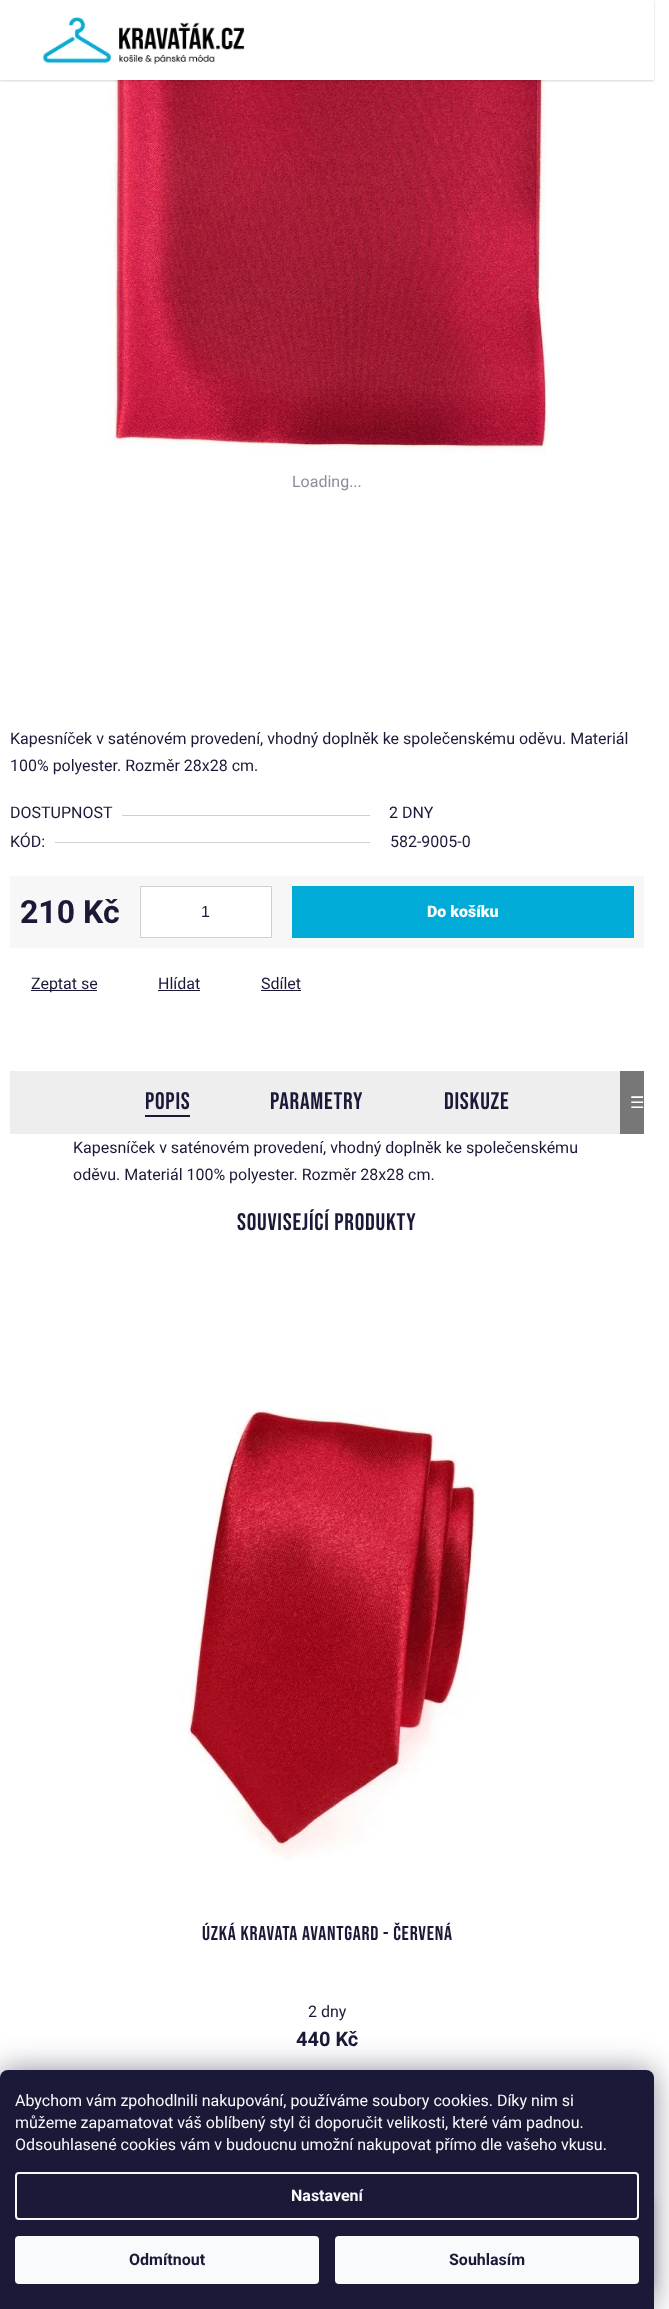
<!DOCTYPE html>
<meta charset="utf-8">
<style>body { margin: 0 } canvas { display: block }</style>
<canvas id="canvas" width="669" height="2309"></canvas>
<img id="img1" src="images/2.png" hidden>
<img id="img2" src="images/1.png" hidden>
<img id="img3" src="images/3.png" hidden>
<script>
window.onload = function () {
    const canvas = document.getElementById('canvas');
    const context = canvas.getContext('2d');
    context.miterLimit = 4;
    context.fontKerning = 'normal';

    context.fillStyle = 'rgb(255, 255, 255)';
    context.fillRect(0, 0, 669, 2309);
    context.drawImage(document.getElementById('img1'), 108, 80, 441, 376);
    context.fillStyle = 'rgba(0, 0, 0, 0.16)';
    context.filter = 'blur(1px)';
    context.beginPath();
    context.rect(0, 1, 654, 80);
    context.fill();
    context.filter = 'none';
    context.fillStyle = 'rgb(255, 255, 255)';
    context.fillRect(0, 0, 654, 80);
    context.drawImage(document.getElementById('img2'), 42, 16, 203, 49);
    context.fillStyle = 'rgb(207, 207, 207)';
    context.fillRect(122, 815, 248, 1);
    context.fillRect(55, 842, 315, 1);
    context.fillStyle = 'rgb(247, 247, 247)';
    context.fillRect(10, 876, 634, 72);
    context.fillStyle = 'rgb(255, 255, 255)';
    context.beginPath();
    context.rect(140.5, 886.5, 131, 51);
    context.fill();
    context.strokeStyle = 'rgb(207, 207, 207)';
    context.stroke();
    context.fillStyle = 'rgb(0, 172, 215)';
    context.fillRect(292, 886, 342, 52);
    context.fillStyle = 'rgb(26, 25, 55)';
    context.fillRect(31, 990, 66, 1);
    context.fillRect(158, 990, 42, 1);
    context.fillRect(261, 990, 40, 1);
    context.fillStyle = 'rgb(238, 238, 238)';
    context.fillRect(10, 1071, 610, 63);
    context.fillStyle = 'rgb(26, 25, 55)';
    context.fillRect(145, 1115, 45, 2);
    context.fillStyle = 'rgb(119, 119, 119)';
    context.fillRect(620, 1071, 24, 63);
    context.drawImage(document.getElementById('img3'), 180, 1410, 296, 450);
    context.fillStyle = 'rgba(0, 0, 0, 0.16)';
    context.filter = 'blur(5px)';
    context.beginPath();
    context.rect(0, 2200, 654, 84);
    context.fill();
    context.filter = 'none';
    context.fillStyle = 'rgba(27, 25, 57, 0.5)';
    context.filter = 'blur(15px)';
    context.beginPath();
    context.roundRect(0, 2070, 654, 239, 8);
    context.fill();
    context.filter = 'none';
    context.fillStyle = 'rgb(26, 25, 55)';
    context.beginPath();
    context.roundRect(0, 2070, 654, 239, [8, 8, 0, 0]);
    context.fill();
    context.beginPath();
    context.roundRect(16, 2173, 622, 46, 3);
    context.strokeStyle = 'rgb(248, 250, 251)';
    context.lineWidth = 2;
    context.stroke();
    context.fillStyle = 'rgb(248, 250, 251)';
    context.beginPath();
    context.roundRect(15, 2236, 304, 48, 4);
    context.fill();
    context.beginPath();
    context.roundRect(335, 2236, 304, 48, 4);
    context.fill();
    context.font = '16px Roboto';
    context.fillStyle = 'rgb(141, 140, 155)';
    context.fillText('Loading...', 292, 487);
    context.fillStyle = 'rgb(26, 25, 55)';
    context.fillText('Kapesníček v saténovém provedení, vhodný doplněk ke společenskému oděvu. Materiál', 10, 744);
    context.fillText('100% polyester. Rozměr 28x28 cm.', 10, 771);
    context.fillText('DOSTUPNOST', 10, 818);
    context.fillText('2 DNY', 389, 818);
    context.fillText('KÓD:', 10, 847);
    context.fillText('582-9005-0', 390, 847);
    context.font = 'bold 32px Roboto';
    context.fillText('210 Kč', 20, 923);
    context.font = '16px Liberation Sans';
    context.fillText('1', 201, 917);
    context.font = '900 16px Roboto';
    context.fillStyle = 'rgb(255, 255, 255)';
    context.fillText('Do košíku', 427, 917);
    context.font = '16px Roboto';
    context.fillStyle = 'rgb(26, 25, 55)';
    context.fillText('Zeptat se', 31, 989);
    context.fillText('Hlídat', 158, 989);
    context.fillText('Sdílet', 261, 989);
    context.letterSpacing = '0.75px';
    context.font = '24px Bebas Neue';
    context.fillText('Popis', 145, 1109);
    context.fillText('Parametry', 270, 1109);
    context.fillText('Diskuze', 444, 1109);
    context.letterSpacing = '0px';
    context.font = '16px DejaVu Sans';
    context.fillStyle = 'rgb(255, 255, 255)';
    context.fillText('☰', 630, 1108);
    context.font = '16px Roboto';
    context.fillStyle = 'rgb(26, 25, 55)';
    context.fillText('Kapesníček v saténovém provedení, vhodný doplněk ke společenskému', 73, 1153);
    context.fillText('oděvu. Materiál 100% polyester. Rozměr 28x28 cm.', 73, 1180);
    context.letterSpacing = '0.75px';
    context.font = '24px Bebas Neue';
    context.fillText('Související produkty', 237, 1230);
    context.font = '20px Bebas Neue';
    context.fillText('Úzká Kravata Avantgard - červená', 202, 1940);
    context.letterSpacing = '0px';
    context.font = '16px Roboto';
    context.fillText('2 dny', 308, 2017);
    context.font = 'bold 20px Roboto';
    context.fillText('440 Kč', 296, 2046);
    context.font = '16px Roboto';
    context.fillStyle = 'rgb(248, 250, 251)';
    context.fillText('Abychom vám zpohodlnili nakupování, používáme soubory cookies. Díky nim si', 15, 2106);
    context.fillText('můžeme zapamatovat váš oblíbený styl či doporučit velikosti, které vám padnou.', 15, 2128);
    context.fillText('Odsouhlasené cookies vám v budoucnu umožní nakupovat přímo dle vašeho vkusu.', 15, 2150);
    context.font = 'bold 16px Roboto';
    context.fillText('Nastavení', 291, 2201);
    context.fillStyle = 'rgb(26, 25, 55)';
    context.fillText('Odmítnout', 129, 2265);
    context.fillText('Souhlasím', 449, 2265);
};
</script>
